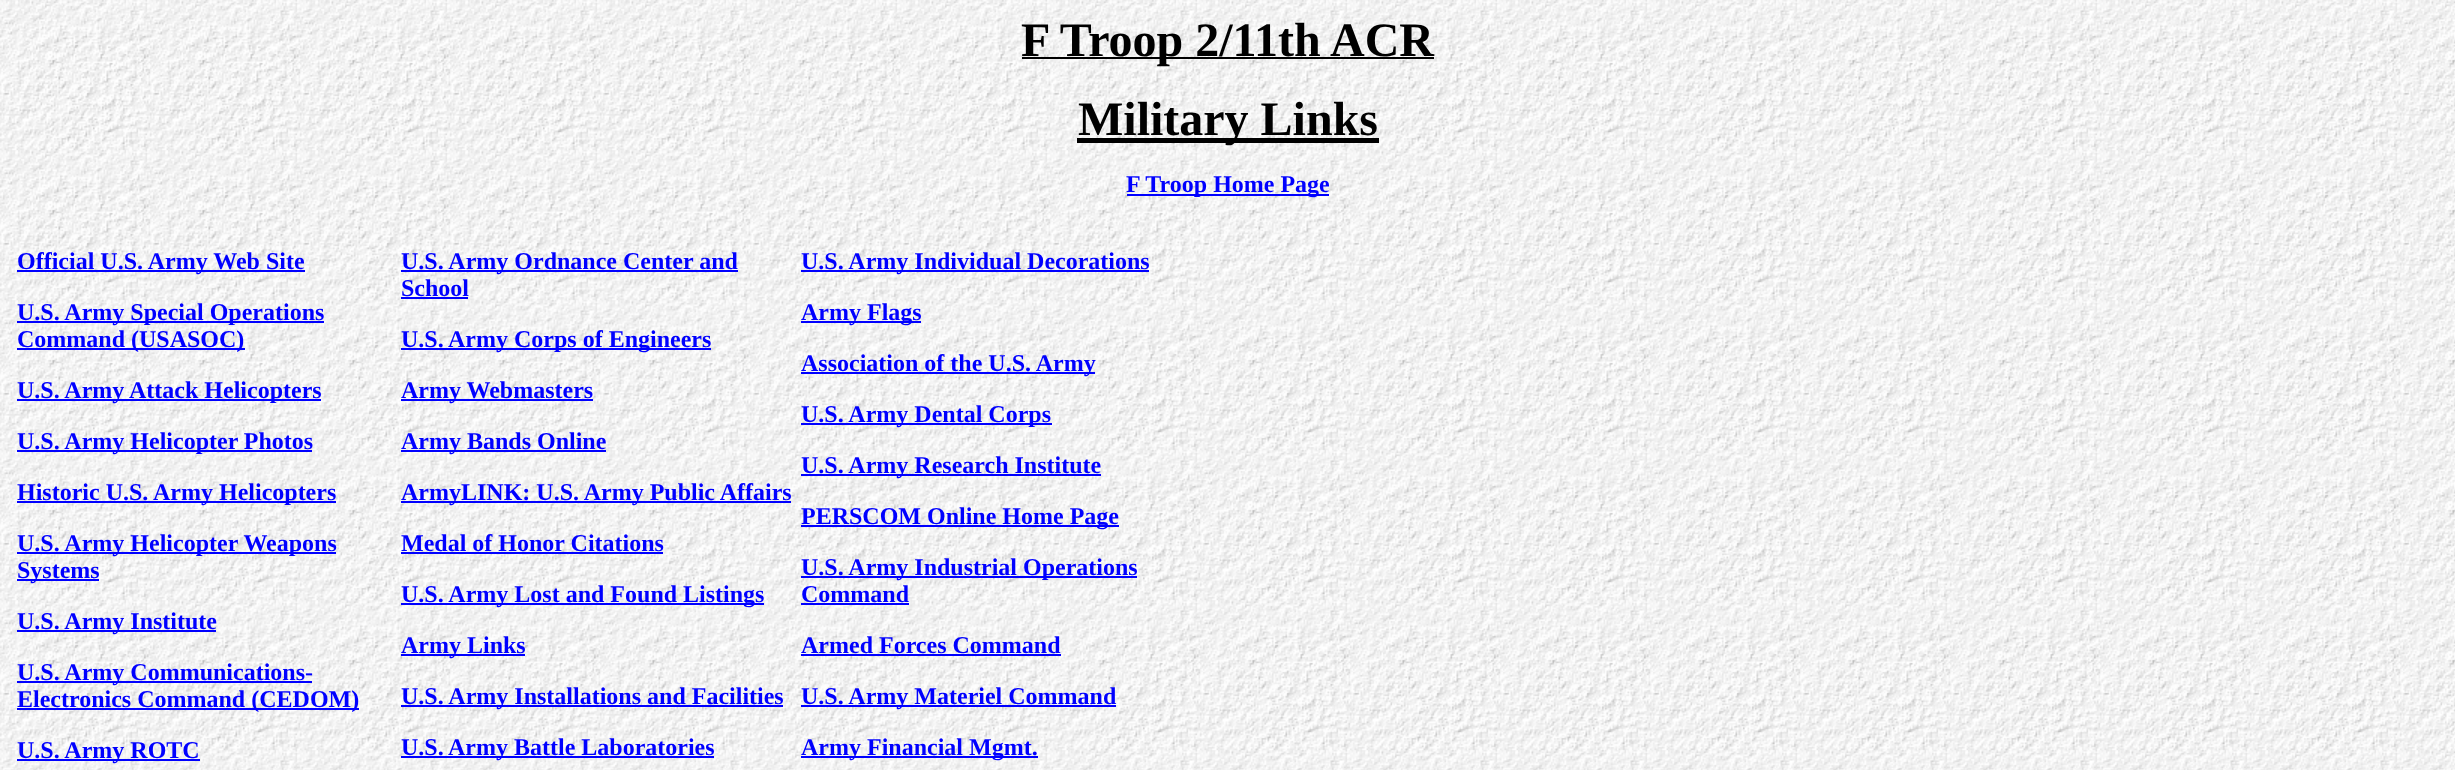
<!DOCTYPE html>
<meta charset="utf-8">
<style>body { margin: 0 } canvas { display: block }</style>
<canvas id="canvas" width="2455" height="770"></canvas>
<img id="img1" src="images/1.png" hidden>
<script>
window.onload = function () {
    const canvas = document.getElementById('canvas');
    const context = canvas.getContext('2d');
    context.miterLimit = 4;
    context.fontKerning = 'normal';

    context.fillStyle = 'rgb(255, 255, 255)';
    context.fillRect(0, 0, 2455, 770);
    context.drawImage(document.getElementById('img1'), 0, 0, 2455, 770);
    context.fillStyle = 'rgb(0, 0, 0)';
    context.fillRect(1022, 57, 412, 2);
    context.fillRect(1077, 138, 302, 5);
    context.fillStyle = 'rgb(0, 0, 255)';
    context.fillRect(1127, 194, 202, 2);
    context.fillRect(17, 270, 288, 2);
    context.fillRect(17, 321, 307, 2);
    context.fillRect(17, 348, 228, 2);
    context.fillRect(17, 399, 304, 2);
    context.fillRect(17, 450, 295, 2);
    context.fillRect(17, 501, 319, 2);
    context.fillRect(17, 552, 319, 2);
    context.fillRect(17, 579, 82, 2);
    context.fillRect(17, 630, 199, 2);
    context.fillRect(17, 681, 295, 2);
    context.fillRect(17, 708, 342, 2);
    context.fillRect(17, 759, 183, 2);
    context.fillRect(401, 270, 337, 2);
    context.fillRect(401, 297, 67, 2);
    context.fillRect(401, 348, 310, 2);
    context.fillRect(401, 399, 192, 2);
    context.fillRect(401, 450, 205, 2);
    context.fillRect(401, 501, 390, 2);
    context.fillRect(401, 552, 262, 2);
    context.fillRect(401, 603, 363, 2);
    context.fillRect(401, 654, 124, 2);
    context.fillRect(401, 705, 382, 2);
    context.fillRect(401, 756, 313, 2);
    context.fillRect(801, 270, 348, 2);
    context.fillRect(801, 321, 120, 2);
    context.fillRect(801, 372, 294, 2);
    context.fillRect(801, 423, 251, 2);
    context.fillRect(801, 474, 300, 2);
    context.fillRect(801, 525, 318, 2);
    context.fillRect(801, 576, 336, 2);
    context.fillRect(801, 603, 108, 2);
    context.fillRect(801, 654, 260, 2);
    context.fillRect(801, 705, 315, 2);
    context.fillRect(801, 756, 237, 2);
    context.font = 'bold 48px Liberation Serif';
    context.fillStyle = 'rgb(0, 0, 0)';
    context.fillText('F Troop 2/11th ACR', 1021, 56);
    context.fillText('Military Links', 1078, 135);
    context.font = 'bold 24px Liberation Serif';
    context.fillStyle = 'rgb(0, 0, 255)';
    context.fillText('F Troop Home Page', 1126, 192);
    context.fillText('Official U.S. Army Web Site', 17, 269);
    context.fillText('U.S. Army Special Operations', 17, 320);
    context.fillText('Command (USASOC)', 17, 347);
    context.fillText('U.S. Army Attack Helicopters', 17, 398);
    context.fillText('U.S. Army Helicopter Photos', 17, 449);
    context.fillText('Historic U.S. Army Helicopters', 17, 500);
    context.fillText('U.S. Army Helicopter Weapons', 17, 551);
    context.fillText('Systems', 17, 578);
    context.fillText('U.S. Army Institute', 17, 629);
    context.fillText('U.S. Army Communications-', 17, 680);
    context.fillText('Electronics Command (CEDOM)', 17, 707);
    context.fillText('U.S. Army ROTC', 17, 758);
    context.fillText('U.S. Army Ordnance Center and', 401, 269);
    context.fillText('School', 401, 296);
    context.fillText('U.S.', 401, 347);
    context.fillText('Army Corps of Engineers', 448, 347);
    context.fillText('Army Webmasters', 401, 398);
    context.fillText('Army Bands Online', 401, 449);
    context.fillText('ArmyLINK: U.S. Army Public Affairs', 401, 500);
    context.fillText('Medal of Honor Citations', 401, 551);
    context.fillText('U.S. Army Lost and Found Listings', 401, 602);
    context.fillText('Army Links', 401, 653);
    context.fillText('U.S. Army Installations and Facilities', 401, 704);
    context.fillText('U.S.', 401, 755);
    context.fillText('Army Battle Laboratories', 448, 755);
    context.fillText('U.S. Army Individual Decorations', 801, 269);
    context.fillText('Army Flags', 801, 320);
    context.fillText('Association of the U.S. Army', 801, 371);
    context.fillText('U.S. Army Dental Corps', 801, 422);
    context.fillText('U.S. Army Research Institute', 801, 473);
    context.fillText('PERSCOM Online Home Page', 801, 524);
    context.fillText('U.S. Army Industrial Operations', 801, 575);
    context.fillText('Command', 801, 602);
    context.fillText('Armed Forces Command', 801, 653);
    context.fillText('U.S. Army Materiel Command', 801, 704);
    context.fillText('Army Financial Mgmt.', 801, 755);
};
</script>
